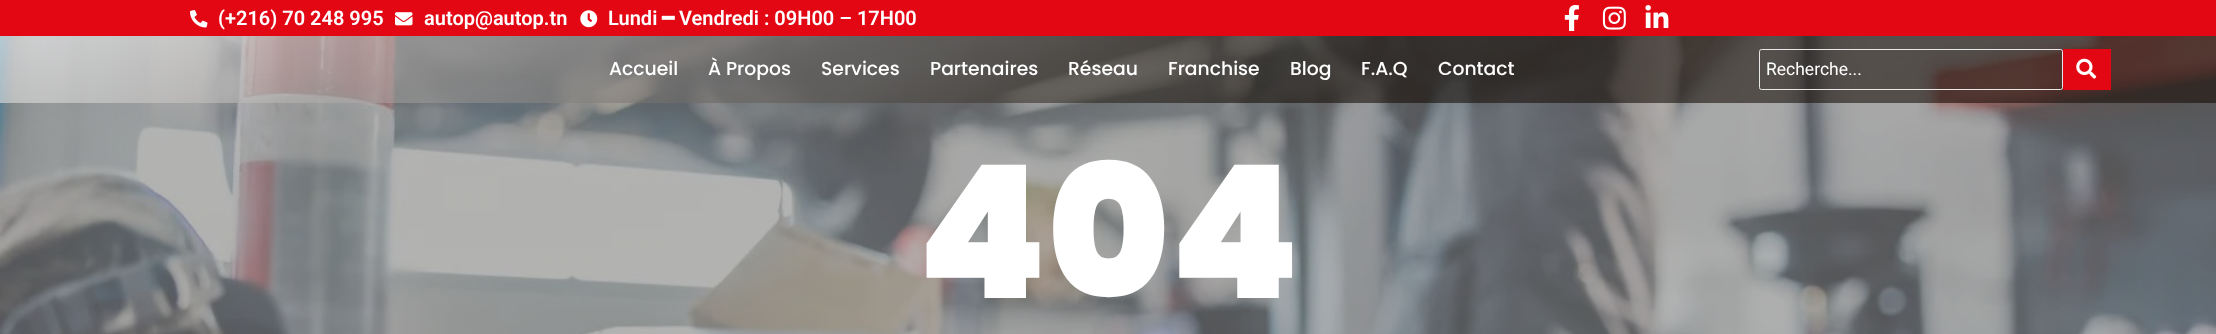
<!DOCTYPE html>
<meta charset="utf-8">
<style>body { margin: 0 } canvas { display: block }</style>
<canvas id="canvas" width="2216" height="334"></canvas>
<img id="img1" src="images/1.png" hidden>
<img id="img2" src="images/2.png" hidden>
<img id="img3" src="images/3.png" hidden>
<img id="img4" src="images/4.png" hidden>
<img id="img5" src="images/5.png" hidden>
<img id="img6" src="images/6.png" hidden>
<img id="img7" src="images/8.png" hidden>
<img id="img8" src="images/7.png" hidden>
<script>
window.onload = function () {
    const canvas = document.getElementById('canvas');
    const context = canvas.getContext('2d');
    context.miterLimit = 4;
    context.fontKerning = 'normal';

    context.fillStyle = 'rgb(255, 255, 255)';
    context.fillRect(0, 0, 2216, 334);
    context.fillStyle = 'rgb(227, 6, 19)';
    context.fillRect(0, 0, 2216, 36);
    context.drawImage(document.getElementById('img1'), 190, 10, 18, 18);
    context.drawImage(document.getElementById('img2'), 395, 12, 18, 14);
    context.drawImage(document.getElementById('img3'), 580, 10, 18, 18);
    context.drawImage(document.getElementById('img4'), 1564, 5, 15, 26);
    context.drawImage(document.getElementById('img5'), 1602, 6, 24, 24);
    context.drawImage(document.getElementById('img6'), 1645, 5, 24, 23);
    context.drawImage(document.getElementById('img7'), 0, 36, 2216, 298);
    context.beginPath();
    context.roundRect(1759.5, 49.5, 303, 40, 2);
    context.strokeStyle = 'rgb(232, 232, 232)';
    context.stroke();
    context.fillRect(2063, 49, 48, 41);
    context.drawImage(document.getElementById('img8'), 2076, 58, 21, 21);
    context.font = '600 20px Roboto';
    context.fillStyle = 'rgb(255, 255, 255)';
    context.fillText('(+216) 70 248 995', 218, 25);
    context.fillText('autop@autop.tn', 424, 25);
    context.fillText('Lundi', 608, 25);
    context.font = 'bold 20px DejaVu Sans';
    context.fillText('━', 662, 25);
    context.font = '600 20px Roboto';
    context.fillText('Vendredi : 09H00 – 17H00', 679, 25);
    context.font = '500 18.75px Poppins';
    context.fillText('Accueil', 609, 75);
    context.fillText('À Propos', 708, 75);
    context.fillText('Services', 821, 75);
    context.fillText('Partenaires', 930, 75);
    context.fillText('Réseau', 1068, 75);
    context.fillText('Franchise', 1168, 75);
    context.fillText('Blog', 1290, 75);
    context.fillText('F.A.Q', 1361, 75);
    context.fillText('Contact', 1438, 75);
    context.font = '17.5px Roboto';
    context.fillText('Recherche...', 1766, 75);
    context.font = '900 185px Poppins';
    context.fillText('404', 917, 298);
};
</script>
